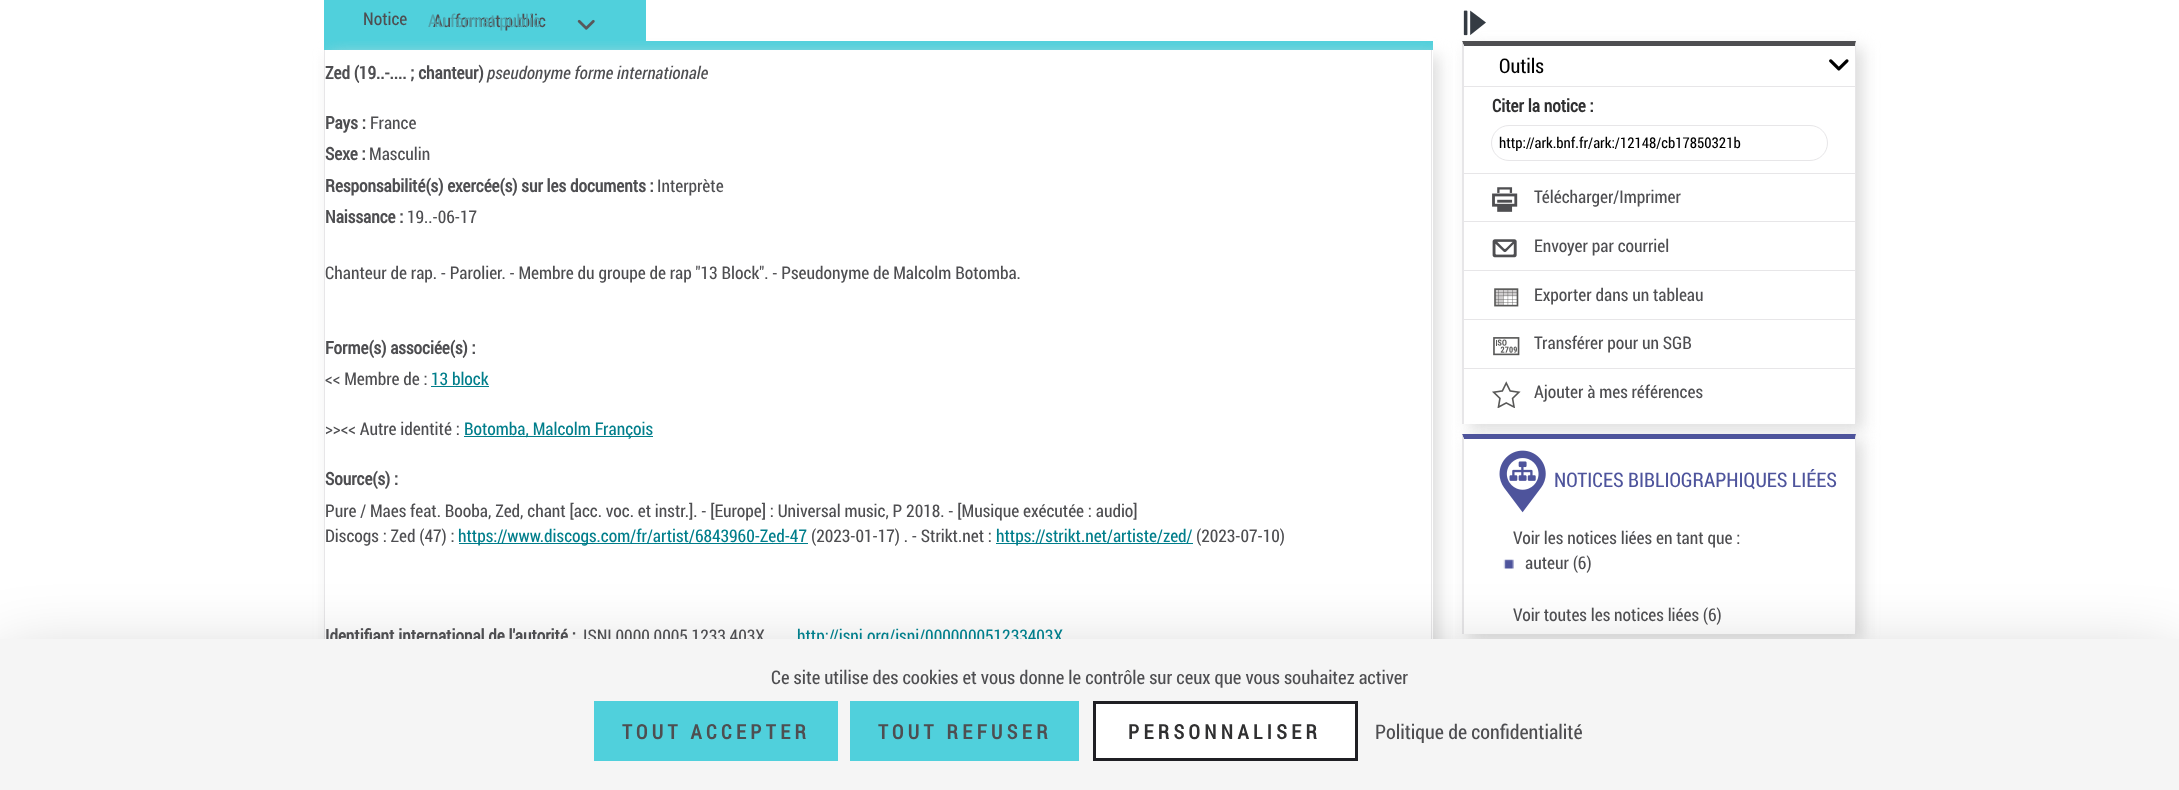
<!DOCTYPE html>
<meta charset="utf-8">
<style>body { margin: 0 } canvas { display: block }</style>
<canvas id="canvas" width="2179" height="790"></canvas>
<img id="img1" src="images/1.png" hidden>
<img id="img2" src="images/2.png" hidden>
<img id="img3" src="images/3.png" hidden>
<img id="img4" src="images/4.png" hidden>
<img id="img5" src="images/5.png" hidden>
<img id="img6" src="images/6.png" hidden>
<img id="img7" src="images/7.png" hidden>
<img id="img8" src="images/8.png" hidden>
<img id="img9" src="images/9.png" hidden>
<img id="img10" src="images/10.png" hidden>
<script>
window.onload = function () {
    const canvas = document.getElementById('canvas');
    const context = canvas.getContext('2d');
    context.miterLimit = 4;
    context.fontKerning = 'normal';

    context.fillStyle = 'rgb(255, 255, 255)';
    context.fillRect(0, 0, 2179, 790);
    context.fillStyle = 'rgb(80, 208, 220)';
    context.fillRect(324, 41, 1109, 9);
    context.fillStyle = 'rgb(221, 221, 221)';
    context.filter = 'blur(8px)';
    context.beginPath();
    context.rect(330, 56, 1109, 705);
    context.fill();
    context.filter = 'none';
    context.fillStyle = 'rgb(80, 208, 220)';
    context.fillRect(324, 0, 322, 41);
    context.drawImage(document.getElementById('img1'), 577, 19, 18, 11);
    context.fillStyle = 'rgb(255, 255, 255)';
    context.fillRect(325, 50, 1108, 589);
    context.fillStyle = 'rgb(231, 230, 232)';
    context.fillRect(1431, 50, 1, 589);
    context.fillRect(324, 50, 1, 589);
    context.fillStyle = 'rgb(0, 126, 139)';
    context.fillRect(431, 386, 58, 1);
    context.fillRect(464, 436, 189, 1);
    context.fillRect(459, 543, 349, 1);
    context.fillRect(996, 543, 197, 1);
    context.fillStyle = 'rgb(221, 221, 221)';
    context.filter = 'blur(8px)';
    context.beginPath();
    context.rect(1469, 48, 394, 382);
    context.fill();
    context.filter = 'none';
    context.drawImage(document.getElementById('img2'), 1463, 10, 23, 26);
    context.fillStyle = 'rgb(255, 255, 255)';
    context.fillRect(1463, 41, 393, 383);
    context.fillStyle = 'rgb(78, 78, 81)';
    context.beginPath();
    context.moveTo(1462, 41);
    context.lineTo(1856, 41);
    context.lineTo(1855, 46);
    context.lineTo(1464, 46);
    context.closePath();
    context.fill();
    context.fillStyle = 'rgb(231, 230, 232)';
    context.beginPath();
    context.moveTo(1856, 41);
    context.lineTo(1856, 424);
    context.lineTo(1855, 424);
    context.lineTo(1855, 46);
    context.closePath();
    context.fill();
    context.beginPath();
    context.moveTo(1462, 424);
    context.lineTo(1462, 41);
    context.lineTo(1464, 46);
    context.lineTo(1464, 424);
    context.closePath();
    context.fill();
    context.drawImage(document.getElementById('img3'), 1829, 59, 20, 12);
    context.fillRect(1464, 86, 391, 1);
    context.beginPath();
    context.roundRect(1491.5, 125.5, 336, 35, 17.5);
    context.strokeStyle = 'rgb(231, 230, 232)';
    context.stroke();
    context.fillRect(1464, 173, 391, 1);
    context.drawImage(document.getElementById('img4'), 1492, 187, 26, 25);
    context.fillRect(1464, 221, 391, 1);
    context.drawImage(document.getElementById('img5'), 1492, 239, 25, 19);
    context.fillRect(1464, 270, 391, 1);
    context.drawImage(document.getElementById('img6'), 1494, 288, 25, 19);
    context.fillRect(1464, 319, 391, 1);
    context.drawImage(document.getElementById('img7'), 1493, 337, 27, 19);
    context.fillRect(1464, 368, 391, 1);
    context.drawImage(document.getElementById('img8'), 1492, 381, 29, 27);
    context.fillStyle = 'rgb(221, 221, 221)';
    context.filter = 'blur(8px)';
    context.beginPath();
    context.rect(1469, 440, 394, 200);
    context.fill();
    context.filter = 'none';
    context.fillStyle = 'rgb(255, 255, 255)';
    context.fillRect(1463, 434, 393, 200);
    context.fillStyle = 'rgb(78, 84, 156)';
    context.beginPath();
    context.moveTo(1462, 434);
    context.lineTo(1856, 434);
    context.lineTo(1855, 439);
    context.lineTo(1464, 439);
    context.closePath();
    context.fill();
    context.fillStyle = 'rgb(231, 230, 232)';
    context.beginPath();
    context.moveTo(1856, 434);
    context.lineTo(1856, 634);
    context.lineTo(1855, 634);
    context.lineTo(1855, 439);
    context.closePath();
    context.fill();
    context.beginPath();
    context.moveTo(1462, 634);
    context.lineTo(1462, 434);
    context.lineTo(1464, 439);
    context.lineTo(1464, 634);
    context.closePath();
    context.fill();
    context.drawImage(document.getElementById('img9'), 1499, 450, 47, 63);
    context.drawImage(document.getElementById('img10'), 1503, 559, 11, 10);
    context.fillStyle = 'rgba(0, 0, 0, 0.25)';
    context.filter = 'blur(37.5px)';
    context.beginPath();
    context.rect(0, 664, 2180, 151);
    context.fill();
    context.filter = 'none';
    context.font = '17.5px Roboto Condensed';
    context.fillStyle = 'rgb(78, 78, 81)';
    context.fillText('Notice', 363, 25);
    context.fillText('Au format public', 433, 27);
    context.fillStyle = 'rgb(79, 161, 170)';
    context.fillText('Au format public', 428, 27);
    context.font = 'bold 17.5px Roboto Condensed';
    context.fillStyle = 'rgb(78, 78, 81)';
    context.fillText('Zed (19..-.... ; chanteur)', 325, 79);
    context.font = 'italic 17.5px Roboto Condensed';
    context.fillText('pseudonyme forme internationale', 487, 79);
    context.font = 'bold 17.5px Roboto Condensed';
    context.fillText('Pays :', 325, 129);
    context.font = '17.5px Roboto Condensed';
    context.fillText('France', 370, 129);
    context.font = 'bold 17.5px Roboto Condensed';
    context.fillText('Sexe :', 325, 160);
    context.font = '17.5px Roboto Condensed';
    context.fillText('Masculin', 369, 160);
    context.font = 'bold 17.5px Roboto Condensed';
    context.fillText('Responsabilité(s) exercée(s) sur les documents :', 325, 192);
    context.font = '17.5px Roboto Condensed';
    context.fillText('Interprète', 657, 192);
    context.font = 'bold 17.5px Roboto Condensed';
    context.fillText('Naissance :', 325, 223);
    context.font = '17.5px Roboto Condensed';
    context.fillText('19..-06-17', 407, 223);
    context.fillText('Chanteur de rap. - Parolier. - Membre du groupe de rap "13 Block". - Pseudonyme de Malcolm Botomba.', 325, 279);
    context.font = 'bold 17.5px Roboto Condensed';
    context.fillText('Forme(s) associée(s) :', 325, 354);
    context.font = '17.5px Roboto Condensed';
    context.fillText('<< Membre de :', 325, 385);
    context.fillStyle = 'rgb(0, 126, 139)';
    context.fillText('13 block', 431, 385);
    context.fillStyle = 'rgb(78, 78, 81)';
    context.fillText('>><< Autre identité :', 325, 435);
    context.fillStyle = 'rgb(0, 126, 139)';
    context.fillText('Botomba, Malcolm François', 464, 435);
    context.font = 'bold 17.5px Roboto Condensed';
    context.fillStyle = 'rgb(78, 78, 81)';
    context.fillText('Source(s) :', 325, 485);
    context.font = '17.5px Roboto Condensed';
    context.fillText('Pure / Maes feat. Booba, Zed, chant [acc. voc. et instr.]. - [Europe] : Universal music, P 2018. - [Musique exécutée : audio]', 325, 517);
    context.fillText('Discogs : Zed (47) :', 325, 542);
    context.fillStyle = 'rgb(0, 126, 139)';
    context.fillText('https://www.discogs.com/fr/artist/6843960-Zed-47', 458, 542);
    context.fillStyle = 'rgb(78, 78, 81)';
    context.fillText('(2023-01-17) . - Strikt.net :', 811, 542);
    context.fillStyle = 'rgb(0, 126, 139)';
    context.fillText('https://strikt.net/artiste/zed/', 996, 542);
    context.fillStyle = 'rgb(78, 78, 81)';
    context.fillText('(2023-07-10)', 1196, 542);
    context.font = 'bold 17.5px Roboto Condensed';
    context.fillText('Identifiant international de l\'autorité :', 325, 642);
    context.font = '17.5px Roboto Condensed';
    context.fillText('ISNI 0000 0005 1233 403X', 583, 642);
    context.fillStyle = 'rgb(0, 126, 139)';
    context.fillText('http://isni.org/isni/000000051233403X', 797, 642);
    context.font = '20.1px Roboto Condensed';
    context.fillStyle = 'rgb(0, 0, 0)';
    context.fillText('Outils', 1499, 73);
    context.font = 'bold 17.5px Roboto Condensed';
    context.fillStyle = 'rgb(48, 48, 49)';
    context.fillText('Citer la notice :', 1492, 112);
    context.font = '14.9px Roboto Condensed';
    context.fillStyle = 'rgb(0, 0, 0)';
    context.fillText('http://ark.bnf.fr/ark:/12148/cb17850321b', 1499, 148);
    context.font = '17.5px Roboto Condensed';
    context.fillStyle = 'rgb(78, 78, 81)';
    context.fillText('Télécharger/Imprimer', 1534, 203);
    context.fillText('Envoyer par courriel', 1534, 252);
    context.fillText('Exporter dans un tableau', 1534, 301);
    context.fillText('Transférer pour un SGB', 1534, 349);
    context.fillText('Ajouter à mes références', 1534, 398);
    context.font = '20.1px Roboto Condensed';
    context.fillStyle = 'rgb(78, 84, 156)';
    context.fillText('NOTICES BIBLIOGRAPHIQUES LIÉES', 1554, 487);
    context.font = '17.5px Roboto Condensed';
    context.fillStyle = 'rgb(78, 78, 81)';
    context.fillText('Voir les notices liées en tant que :', 1513, 544);
    context.fillText('auteur (6)', 1525, 569);
    context.fillText('Voir toutes les notices liées (6)', 1513, 621);
    context.fillStyle = 'rgb(245, 245, 245)';
    context.fillRect(0, 639, 2179, 151);
    context.font = '18.75px Roboto Condensed';
    context.fillStyle = 'rgb(78, 78, 81)';
    context.fillText('Ce site utilise des cookies et vous donne le contrôle sur ceux que vous souhaitez activer', 771, 684);
    context.fillStyle = 'rgb(80, 208, 220)';
    context.fillRect(594, 701, 244, 60);
    context.letterSpacing = '4.4px';
    context.font = 'bold 20px Roboto Condensed';
    context.fillStyle = 'rgb(78, 78, 81)';
    context.fillText('TOUT ACCEPTER', 622, 739);
    context.fillStyle = 'rgb(80, 208, 220)';
    context.fillRect(850, 701, 229, 60);
    context.fillStyle = 'rgb(78, 78, 81)';
    context.fillText('TOUT REFUSER', 878, 739);
    context.fillStyle = 'rgb(255, 255, 255)';
    context.beginPath();
    context.rect(1094.5, 702.5, 262, 57);
    context.fill();
    context.strokeStyle = 'rgb(31, 31, 36)';
    context.lineWidth = 3;
    context.stroke();
    context.fillStyle = 'rgb(48, 48, 49)';
    context.fillText('PERSONNALISER', 1128, 739);
    context.letterSpacing = '0px';
    context.font = '20px Roboto Condensed';
    context.fillStyle = 'rgb(78, 78, 81)';
    context.fillText('Politique de confidentialité', 1375, 739);
};
</script>
